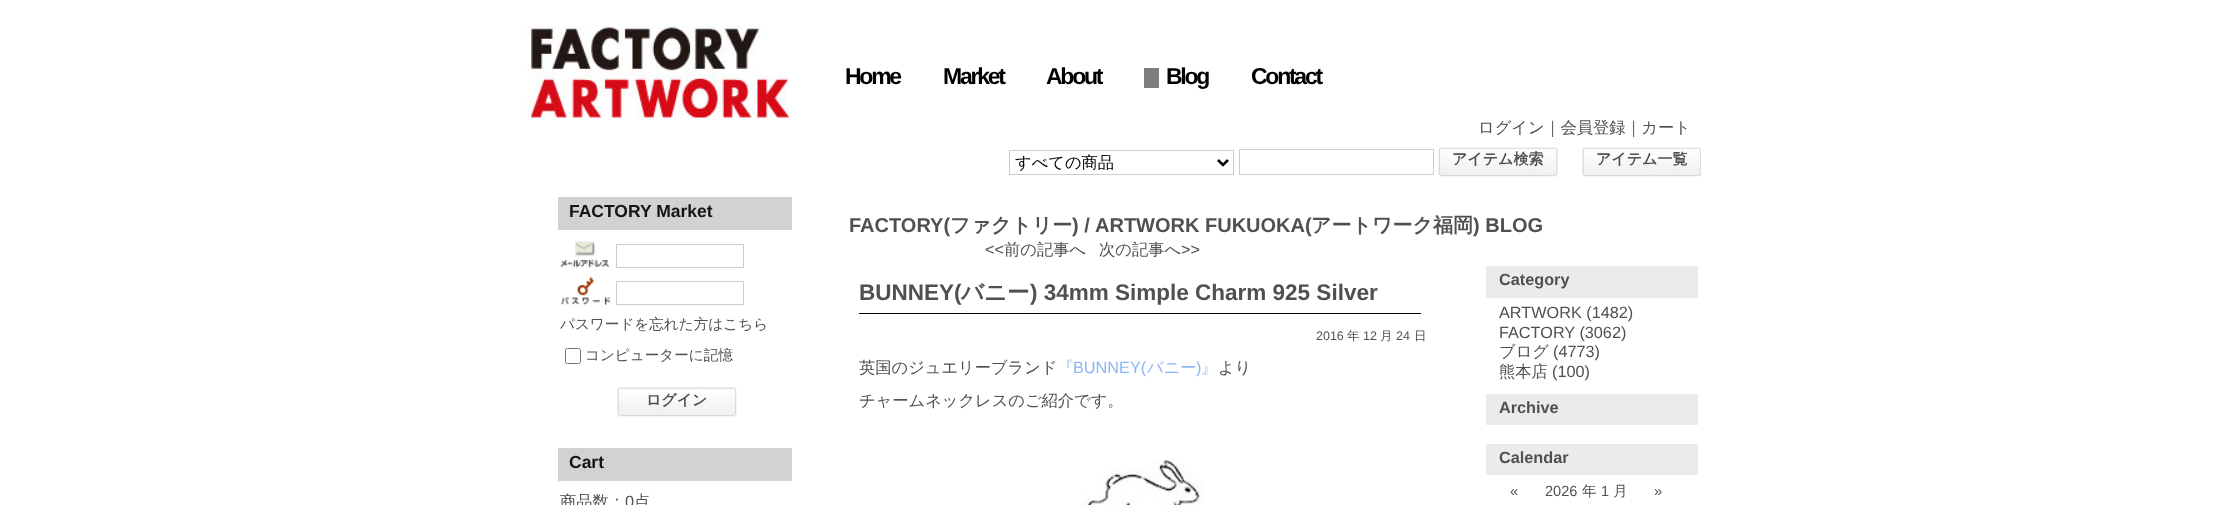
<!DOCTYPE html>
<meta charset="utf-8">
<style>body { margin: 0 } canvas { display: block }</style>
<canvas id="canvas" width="2215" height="505"></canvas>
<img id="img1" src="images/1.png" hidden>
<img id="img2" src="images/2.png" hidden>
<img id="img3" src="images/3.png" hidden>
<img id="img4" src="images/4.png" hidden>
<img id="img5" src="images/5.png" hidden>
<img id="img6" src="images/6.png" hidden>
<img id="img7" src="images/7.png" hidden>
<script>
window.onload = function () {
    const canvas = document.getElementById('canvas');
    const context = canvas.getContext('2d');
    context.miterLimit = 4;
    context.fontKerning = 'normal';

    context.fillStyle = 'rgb(255, 255, 255)';
    context.fillRect(0, 0, 2215, 505);
    context.drawImage(document.getElementById('img1'), 526, 25, 263, 93);
    context.fillStyle = 'rgb(125, 125, 125)';
    context.fillRect(1144, 68, 15, 20);
    context.strokeStyle = 'rgb(204, 204, 204)';
    context.strokeRect(1009.5, 150.5, 224, 24);
    context.beginPath();
    context.moveTo(1218, 160);
    context.lineTo(1223, 165);
    context.lineTo(1228, 160);
    context.strokeStyle = 'rgb(0, 0, 0)';
    context.lineWidth = 2.5;
    context.stroke();
    context.strokeStyle = 'rgb(204, 204, 204)';
    context.lineWidth = 1;
    context.strokeRect(1239.5, 149.5, 194, 25);
    context.drawImage(document.getElementById('img2'), 1438, 147, 120, 30);
    context.drawImage(document.getElementById('img3'), 1582, 147, 119, 30);
    context.fillStyle = 'rgb(210, 210, 210)';
    context.fillRect(558, 197, 234, 33);
    context.drawImage(document.getElementById('img4'), 560, 241, 49, 27);
    context.strokeRect(616.5, 244.5, 127, 23);
    context.drawImage(document.getElementById('img5'), 561, 277, 49, 28);
    context.strokeRect(616.5, 281.5, 127, 23);
    context.beginPath();
    context.roundRect(565.5, 348.5, 15, 15, 2);
    context.strokeStyle = 'rgb(118, 118, 118)';
    context.stroke();
    context.drawImage(document.getElementById('img6'), 617, 387, 120, 30);
    context.fillRect(558, 448, 234, 34);
    context.fillStyle = 'rgb(255, 255, 255)';
    context.fillRect(559, 481, 233, 1);
    context.fillStyle = 'rgb(0, 0, 0)';
    context.fillRect(859, 313, 562, 1);
    context.drawImage(document.getElementById('img7'), 1080, 459, 123, 46);
    context.fillStyle = 'rgb(235, 235, 235)';
    context.fillRect(1486, 266, 212, 32);
    context.fillRect(1486, 394, 212, 31);
    context.fillRect(1486, 444, 212, 31);
    context.letterSpacing = '-2.25px';
    context.font = 'bold 23px Liberation Sans';
    context.fillStyle = 'rgb(0, 0, 0)';
    context.fillText('Home', 845, 84);
    context.fillText('Market', 943, 84);
    context.fillText('About', 1046, 84);
    context.fillText('Blog', 1166, 84);
    context.fillText('Contact', 1251, 84);
    context.letterSpacing = '0px';
    context.font = '500 16.25px WenQuanYi Zen Hei';
    context.fillStyle = 'rgb(80, 80, 80)';
    context.fillText('ログイン｜会員登録｜カート', 1478, 133);
    context.fillStyle = 'rgb(0, 0, 0)';
    context.fillText('すべての商品', 1015, 168);
    context.font = 'bold 15px WenQuanYi Zen Hei';
    context.fillStyle = 'rgb(80, 80, 80)';
    context.fillText('アイテム検索', 1452, 164);
    context.fillText('アイテム一覧', 1596, 164);
    context.font = 'bold 17.5px Liberation Sans';
    context.fillStyle = 'rgb(20, 20, 20)';
    context.fillText('FACTORY Market', 569, 217);
    context.font = '500 14.6px WenQuanYi Zen Hei';
    context.fillStyle = 'rgb(80, 80, 80)';
    context.fillText('パスワードを忘れた方はこちら', 560, 329);
    context.fillText('コンピューターに記憶', 585, 360);
    context.font = 'bold 15px WenQuanYi Zen Hei';
    context.fillText('ログイン', 646, 405);
    context.font = 'bold 17.5px Liberation Sans';
    context.fillStyle = 'rgb(20, 20, 20)';
    context.fillText('Cart', 569, 468);
    context.font = '500 16.25px WenQuanYi Zen Hei';
    context.fillStyle = 'rgb(80, 80, 80)';
    context.fillText('商品数：', 560, 507);
    context.font = '16.25px Liberation Sans';
    context.fillText('0', 625, 507);
    context.font = '500 16.25px WenQuanYi Zen Hei';
    context.fillText('点', 634, 507);
    context.font = 'bold 20px Liberation Sans';
    context.fillText('FACTORY(', 849, 232);
    context.font = 'bold 20px WenQuanYi Zen Hei';
    context.fillText('ファクトリー', 950, 232);
    context.font = 'bold 20px Liberation Sans';
    context.fillText(') /', 1072, 232);
    context.fillText('ARTWORK FUKUOKA(', 1095, 232);
    context.font = 'bold 20px WenQuanYi Zen Hei';
    context.fillText('アートワーク福岡', 1311, 232);
    context.font = 'bold 20px Liberation Sans';
    context.fillText(') BLOG', 1473, 232);
    context.font = '16.25px Liberation Sans';
    context.fillText('<<', 985, 255);
    context.font = '500 16.25px WenQuanYi Zen Hei';
    context.fillText('前の記事へ', 1004, 255);
    context.fillText('次の記事へ', 1099, 255);
    context.font = '16.25px Liberation Sans';
    context.fillText('>>', 1181, 255);
    context.font = 'bold 22.5px Liberation Sans';
    context.fillText('BUNNEY(', 859, 300);
    context.font = 'bold 22.5px WenQuanYi Zen Hei';
    context.fillText('バニー', 961, 300);
    context.font = 'bold 22.5px Liberation Sans';
    context.fillText(') 34mm Simple Charm 925 Silver', 1030, 300);
    context.font = '12.5px Liberation Sans';
    context.fillText('2016', 1316, 340);
    context.font = '500 12.5px WenQuanYi Zen Hei';
    context.fillText('年', 1347, 340);
    context.font = '12.5px Liberation Sans';
    context.fillText('12', 1363, 340);
    context.font = '500 12.5px WenQuanYi Zen Hei';
    context.fillText('月', 1380, 340);
    context.font = '12.5px Liberation Sans';
    context.fillText('24', 1396, 340);
    context.font = '500 12.5px WenQuanYi Zen Hei';
    context.fillText('日', 1414, 340);
    context.font = '500 16.25px WenQuanYi Zen Hei';
    context.fillText('英国のジュエリーブランド', 859, 373);
    context.fillStyle = 'rgb(140, 180, 245)';
    context.fillText('『', 1057, 373);
    context.font = '16.25px Liberation Sans';
    context.fillText('BUNNEY(', 1073, 373);
    context.font = '500 16.25px WenQuanYi Zen Hei';
    context.fillText('バニー', 1147, 373);
    context.font = '16.25px Liberation Sans';
    context.fillText(')', 1196, 373);
    context.font = '500 16.25px WenQuanYi Zen Hei';
    context.fillText('』', 1201, 373);
    context.fillStyle = 'rgb(80, 80, 80)';
    context.fillText('より', 1218, 373);
    context.fillText('チャームネックレスのご紹介です。', 859, 406);
    context.font = 'bold 16.25px Liberation Sans';
    context.fillText('Category', 1499, 285);
    context.font = '16.25px Liberation Sans';
    context.fillText('ARTWORK (1482)', 1499, 318);
    context.fillText('FACTORY (3062)', 1499, 338);
    context.font = '500 16.25px WenQuanYi Zen Hei';
    context.fillText('ブログ', 1499, 357);
    context.font = '16.25px Liberation Sans';
    context.fillText('(4773)', 1553, 357);
    context.font = '500 16.25px WenQuanYi Zen Hei';
    context.fillText('熊本店', 1499, 377);
    context.font = '16.25px Liberation Sans';
    context.fillText('(100)', 1552, 377);
    context.font = 'bold 16.25px Liberation Sans';
    context.fillText('Archive', 1499, 413);
    context.fillText('Calendar', 1499, 463);
    context.font = '14.6px Liberation Sans';
    context.fillText('«', 1510, 496);
    context.fillText('2026', 1545, 496);
    context.font = '500 14.6px WenQuanYi Zen Hei';
    context.fillText('年', 1582, 496);
    context.font = '14.6px Liberation Sans';
    context.fillText('1', 1601, 496);
    context.font = '500 14.6px WenQuanYi Zen Hei';
    context.fillText('月', 1613, 496);
    context.font = '14.6px Liberation Sans';
    context.fillText('»', 1654, 496);
};
</script>
